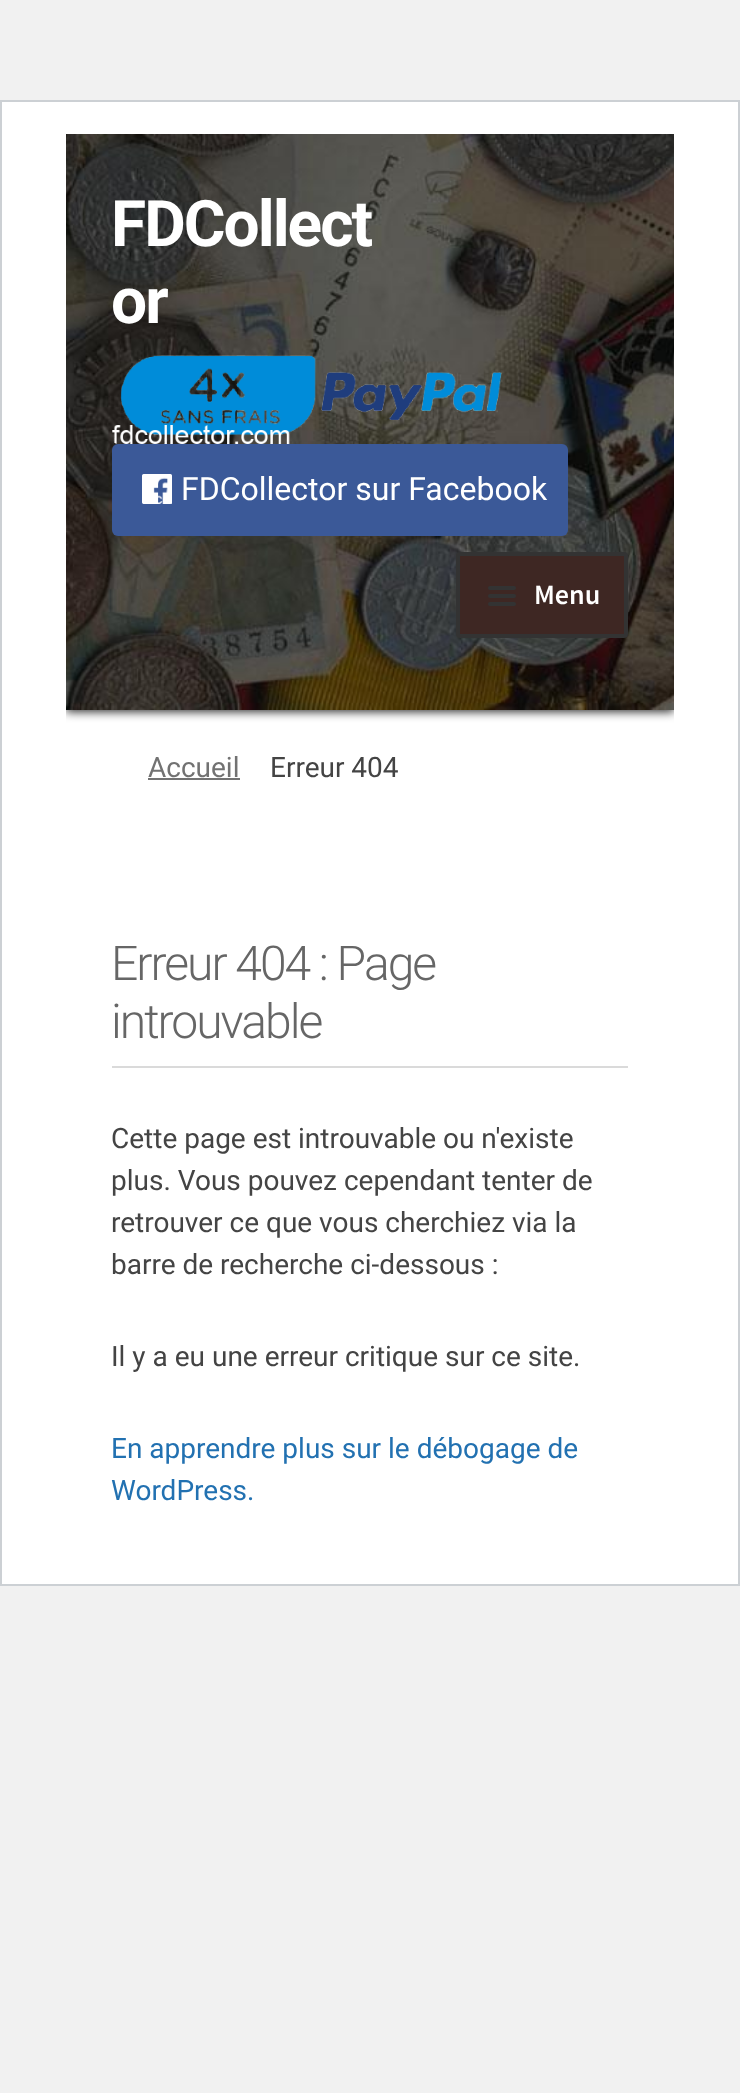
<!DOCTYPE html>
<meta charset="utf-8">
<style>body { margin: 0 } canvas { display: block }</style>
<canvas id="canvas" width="740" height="2093"></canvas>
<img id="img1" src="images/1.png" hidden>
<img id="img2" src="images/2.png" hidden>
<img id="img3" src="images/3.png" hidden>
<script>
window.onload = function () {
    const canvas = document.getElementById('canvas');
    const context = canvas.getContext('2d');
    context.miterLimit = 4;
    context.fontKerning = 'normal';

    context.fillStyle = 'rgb(241, 241, 241)';
    context.fillRect(0, 0, 740, 2093);
    context.fillStyle = 'rgb(255, 255, 255)';
    context.beginPath();
    context.rect(1, 101, 738, 1484);
    context.fill();
    context.strokeStyle = 'rgb(204, 208, 212)';
    context.lineWidth = 2;
    context.stroke();
    context.save();
    context.beginPath();
    context.rect(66, 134, 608, 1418);
    context.clip();
    context.fillStyle = 'rgba(0, 0, 0, 0.8)';
    context.filter = 'blur(5px)';
    context.beginPath();
    context.rect(66, 134, 608, 578);
    context.fill();
    context.filter = 'none';
    context.restore();
    context.drawImage(document.getElementById('img1'), 66, 134, 608, 576);
    context.drawImage(document.getElementById('img2'), 112, 355, 391, 89);
    context.fillStyle = 'rgb(59, 89, 152)';
    context.beginPath();
    context.roundRect(112, 444, 456, 92, 6);
    context.fill();
    context.drawImage(document.getElementById('img3'), 142, 474, 30, 30);
    context.fillStyle = 'rgb(62, 39, 35)';
    context.beginPath();
    context.roundRect(458, 554, 168, 82, 2);
    context.fill();
    context.strokeStyle = 'rgb(51, 51, 51)';
    context.lineWidth = 4;
    context.stroke();
    context.fillStyle = 'rgb(51, 51, 51)';
    context.beginPath();
    context.roundRect(488, 586, 28, 4, 2);
    context.fill();
    context.beginPath();
    context.roundRect(488, 594, 28, 4, 2);
    context.fill();
    context.beginPath();
    context.roundRect(488, 602, 28, 4, 2);
    context.fill();
    context.fillStyle = 'rgb(114, 114, 114)';
    context.fillRect(148, 778, 92, 2);
    context.fillStyle = 'rgb(218, 218, 218)';
    context.fillRect(112, 1066, 516, 2);
    context.letterSpacing = '-2px';
    context.font = 'bold 64px Roboto';
    context.fillStyle = 'rgb(255, 255, 255)';
    context.fillText('FDCollect', 111, 246);
    context.fillText('or', 111, 323);
    context.letterSpacing = '0px';
    context.font = '32px Roboto';
    context.fillText('FDCollector sur Facebook', 181, 500);
    context.font = '600 28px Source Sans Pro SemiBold';
    context.fillText('Menu', 534, 604);
    context.font = '28px Roboto';
    context.fillStyle = 'rgb(114, 114, 114)';
    context.fillText('Accueil', 148, 777);
    context.fillStyle = 'rgb(68, 68, 68)';
    context.fillText('Erreur 404', 270, 777);
    context.letterSpacing = '-2px';
    context.font = '300 48px Roboto';
    context.fillStyle = 'rgb(102, 102, 102)';
    context.fillText('Erreur 404 : Page', 111, 980);
    context.fillText('introuvable', 111, 1038);
    context.letterSpacing = '0px';
    context.font = '28px Roboto';
    context.fillStyle = 'rgb(68, 68, 68)';
    context.fillText('Cette page est introuvable ou n\'existe', 111, 1148);
    context.fillText('plus. Vous pouvez cependant tenter de', 111, 1190);
    context.fillText('retrouver ce que vous cherchiez via la', 111, 1232);
    context.fillText('barre de recherche ci-dessous :', 111, 1274);
    context.fillText('Il y a eu une erreur critique sur ce site.', 111, 1366);
    context.fillStyle = 'rgb(34, 113, 177)';
    context.fillText('En apprendre plus sur le débogage de', 111, 1458);
    context.fillText('WordPress.', 111, 1500);
};
</script>
